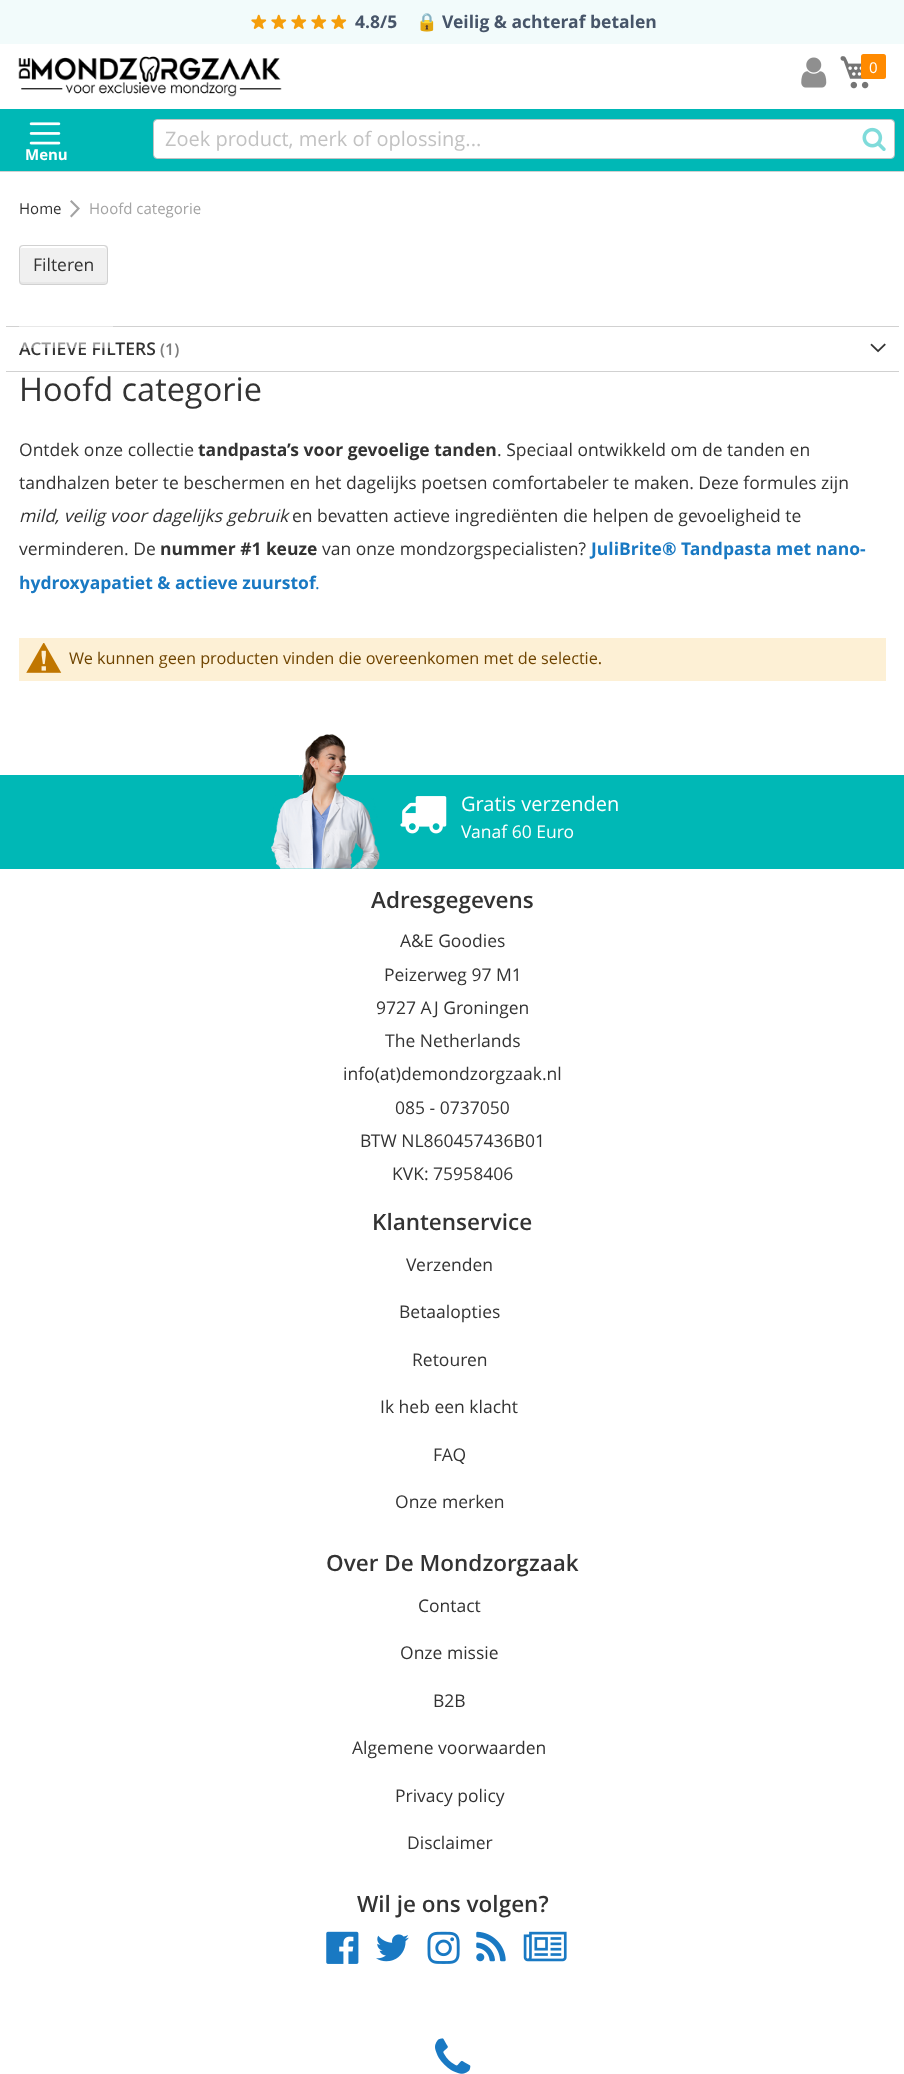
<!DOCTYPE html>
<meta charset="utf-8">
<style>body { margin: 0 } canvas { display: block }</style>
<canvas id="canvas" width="904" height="2074"></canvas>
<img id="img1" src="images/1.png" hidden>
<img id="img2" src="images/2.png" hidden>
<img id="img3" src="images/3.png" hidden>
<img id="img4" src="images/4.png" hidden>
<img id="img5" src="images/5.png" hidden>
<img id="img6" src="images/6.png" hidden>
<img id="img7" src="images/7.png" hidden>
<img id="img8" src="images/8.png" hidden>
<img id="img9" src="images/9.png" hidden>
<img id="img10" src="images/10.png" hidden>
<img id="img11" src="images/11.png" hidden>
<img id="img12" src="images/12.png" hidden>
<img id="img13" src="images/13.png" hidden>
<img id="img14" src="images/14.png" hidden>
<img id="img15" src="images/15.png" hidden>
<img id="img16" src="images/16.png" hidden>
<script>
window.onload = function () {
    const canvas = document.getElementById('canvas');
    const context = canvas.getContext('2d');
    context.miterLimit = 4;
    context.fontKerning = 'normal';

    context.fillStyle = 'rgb(255, 255, 255)';
    context.fillRect(0, 0, 904, 2074);
    context.fillStyle = 'rgb(209, 209, 209)';
    context.fillRect(0, 171, 904, 1);
    context.fillStyle = 'rgb(242, 251, 251)';
    context.fillRect(0, 0, 904, 44);
    context.drawImage(document.getElementById('img1'), 251, 14, 16, 15);
    context.drawImage(document.getElementById('img1'), 271, 14, 16, 15);
    context.drawImage(document.getElementById('img1'), 291, 14, 16, 15);
    context.drawImage(document.getElementById('img1'), 311, 14, 16, 15);
    context.drawImage(document.getElementById('img1'), 331, 14, 16, 15);
    context.drawImage(document.getElementById('img2'), 18, 56, 264, 41);
    context.drawImage(document.getElementById('img3'), 801, 57, 26, 31);
    context.drawImage(document.getElementById('img4'), 840, 56, 29, 33);
    context.fillStyle = 'rgb(255, 138, 0)';
    context.beginPath();
    context.roundRect(861, 54, 25, 25, 2.5);
    context.fill();
    context.fillStyle = 'rgb(0, 184, 182)';
    context.fillRect(0, 109, 904, 62);
    context.fillStyle = 'rgb(255, 255, 255)';
    context.beginPath();
    context.roundRect(154, 120, 740, 38, 2.5);
    context.fill();
    context.beginPath();
    context.roundRect(153.5, 119.5, 741, 39, 3.5);
    context.strokeStyle = 'rgb(194, 194, 194)';
    context.stroke();
    context.drawImage(document.getElementById('img5'), 862, 127, 24, 24);
    context.drawImage(document.getElementById('img6'), 29, 122, 32, 23);
    context.fillStyle = 'rgb(163, 163, 163)';
    context.beginPath();
    context.moveTo(80, 208.5);
    context.lineTo(71.5, 200);
    context.lineTo(70, 201.5);
    context.lineTo(77, 208.5);
    context.lineTo(70, 216);
    context.lineTo(71.5, 217.5);
    context.closePath();
    context.fill();
    context.beginPath();
    context.roundRect(19.5, 245.5, 88, 39, 3.5);
    context.strokeStyle = 'rgb(209, 209, 209)';
    context.stroke();
    context.fillStyle = 'rgb(240, 240, 240)';
    context.beginPath();
    context.roundRect(19, 245, 89, 40, 4);
    context.fill();
    context.fillStyle = 'rgb(231, 231, 231)';
    context.beginPath();
    context.moveTo(20, 280);
    context.bezierCurveTo(20, 288, 30, 284, 36, 284);
    context.lineTo(90, 284);
    context.bezierCurveTo(96, 284, 106, 288, 106, 280);
    context.bezierCurveTo(106, 281, 105, 282, 104, 282);
    context.lineTo(22, 282);
    context.bezierCurveTo(21, 282, 20, 281, 20, 280);
    context.closePath();
    context.fill();
    context.fillStyle = 'rgb(255, 255, 255)';
    context.beginPath();
    context.moveTo(22, 248);
    context.lineTo(104, 248);
    context.bezierCurveTo(105, 248, 106, 249, 106, 250);
    context.bezierCurveTo(106, 242, 96, 246, 90, 246);
    context.lineTo(36, 246);
    context.bezierCurveTo(30, 246, 20, 242, 20, 250);
    context.bezierCurveTo(20, 249, 21, 248, 22, 248);
    context.closePath();
    context.fill();
    context.beginPath();
    context.roundRect(19.5, 245.5, 88, 39, 3.5);
    context.stroke();
    context.fillStyle = 'rgb(209, 209, 209)';
    context.fillRect(6, 326, 893, 1);
    context.fillRect(6, 371, 893, 1);
    context.drawImage(document.getElementById('img7'), 870, 343, 16, 10);
    context.fillStyle = 'rgb(253, 240, 213)';
    context.fillRect(19, 638, 867, 43);
    context.drawImage(document.getElementById('img8'), 26, 643, 36, 30);
    context.fillStyle = 'rgb(0, 184, 182)';
    context.fillRect(0, 775, 904, 94);
    context.drawImage(document.getElementById('img9'), 271, 734, 109, 135);
    context.drawImage(document.getElementById('img10'), 400, 796, 47, 38);
    context.drawImage(document.getElementById('img11'), 326, 1931, 33, 33);
    context.drawImage(document.getElementById('img12'), 376, 1934, 33, 28);
    context.drawImage(document.getElementById('img13'), 427, 1931, 33, 33);
    context.drawImage(document.getElementById('img14'), 476, 1931, 30, 31);
    context.drawImage(document.getElementById('img15'), 523, 1931, 44, 31);
    context.drawImage(document.getElementById('img16'), 435, 2038, 36, 36);
    context.font = 'bold 17.5px Open Sans';
    context.fillStyle = 'rgb(71, 85, 105)';
    context.fillText('4.8/5', 355, 28);
    context.font = 'bold 17.5px Noto Color Emoji';
    context.fillText('🔒', 416, 28);
    context.font = 'bold 17.5px Open Sans';
    context.fillText('Veilig & achteraf betalen', 442, 28);
    context.font = '15px Open Sans';
    context.fillStyle = 'rgb(255, 255, 255)';
    context.fillText('0', 869, 73);
    context.font = '20px Open Sans';
    context.fillStyle = 'rgb(194, 194, 194)';
    context.fillText('Zoek product, merk of oplossing...', 165, 146);
    context.font = 'bold 15px Open Sans';
    context.fillStyle = 'rgb(255, 255, 255)';
    context.fillText('Menu', 25, 160);
    context.font = '15px Open Sans';
    context.fillStyle = 'rgb(51, 51, 51)';
    context.fillText('Home', 19, 214);
    context.fillStyle = 'rgb(163, 163, 163)';
    context.fillText('Hoofd categorie', 89, 214);
    context.font = '17.5px Open Sans';
    context.fillStyle = 'rgb(51, 51, 51)';
    context.fillText('Filteren', 33, 271);
    context.font = '600 17.5px Open Sans';
    context.fillText('ACTIEVE FILTERS', 19, 355);
    context.fillStyle = 'rgba(255, 255, 255, 0.5)';
    context.fillRect(19, 326, 94, 22);
    context.font = '600 16px Open Sans';
    context.fillStyle = 'rgb(125, 125, 125)';
    context.fillText('(1)', 160, 355);
    context.font = '32.5px Open Sans';
    context.fillStyle = 'rgb(51, 51, 51)';
    context.fillText('Hoofd categorie', 19, 401);
    context.font = '17.5px Open Sans';
    context.fillText('Ontdek onze collectie', 19, 456);
    context.font = 'bold 17.5px Open Sans';
    context.fillText('tandpasta’s voor gevoelige tanden', 198, 456);
    context.font = '17.5px Open Sans';
    context.fillText('. Speciaal ontwikkeld om de tanden en', 497, 456);
    context.fillText('tandhalzen beter te beschermen en het dagelijks poetsen comfortabeler te maken. Deze formules zijn', 19, 489);
    context.font = 'italic 17.5px Open Sans';
    context.fillText('mild, veilig voor dagelijks gebruik', 19, 522);
    context.font = '17.5px Open Sans';
    context.fillText('en bevatten actieve ingrediënten die helpen de gevoeligheid te', 292, 522);
    context.fillText('verminderen. De', 19, 555);
    context.font = 'bold 17.5px Open Sans';
    context.fillText('nummer #1 keuze', 160, 555);
    context.font = '17.5px Open Sans';
    context.fillText('van onze mondzorgspecialisten?', 322, 555);
    context.font = 'bold 17.5px Open Sans';
    context.fillStyle = 'rgb(25, 121, 195)';
    context.fillText('JuliBrite® Tandpasta met nano-', 591, 555);
    context.fillText('hydroxyapatiet & actieve zuurstof', 19, 589);
    context.font = '17.5px Open Sans';
    context.fillText('.', 315, 589);
    context.font = '16.25px Open Sans';
    context.fillStyle = 'rgb(111, 68, 0)';
    context.fillText('We kunnen geen producten vinden die overeenkomen met de selectie.', 69, 664);
    context.font = '20px Open Sans';
    context.fillStyle = 'rgb(255, 255, 255)';
    context.fillText('Gratis verzenden', 461, 811);
    context.font = '17.5px Open Sans';
    context.fillText('Vanaf 60 Euro', 461, 838);
    context.font = '600 22.5px Open Sans';
    context.fillStyle = 'rgb(51, 51, 51)';
    context.fillText('Adresgegevens', 371, 908);
    context.font = '17.5px Open Sans';
    context.fillText('A&E Goodies', 400, 947);
    context.fillText('Peizerweg 97 M1', 384, 981);
    context.fillText('9727 AJ Groningen', 376, 1014);
    context.fillText('The Netherlands', 385, 1047);
    context.fillText('info(at)demondzorgzaak.nl', 343, 1080);
    context.fillText('085 - 0737050', 395, 1114);
    context.fillText('BTW NL860457436B01', 360, 1147);
    context.fillText('KVK: 75958406', 392, 1180);
    context.font = '600 22.5px Open Sans';
    context.fillText('Klantenservice', 372, 1230);
    context.font = '17.5px Open Sans';
    context.fillText('Verzenden', 406, 1271);
    context.fillText('Betaalopties', 399, 1318);
    context.fillText('Retouren', 412, 1366);
    context.fillText('Ik heb een klacht', 380, 1413);
    context.fillText('FAQ', 433, 1461);
    context.fillText('Onze merken', 395, 1508);
    context.font = '600 22.5px Open Sans';
    context.fillText('Over De Mondzorgzaak', 326, 1571);
    context.font = '17.5px Open Sans';
    context.fillText('Contact', 418, 1612);
    context.fillText('Onze missie', 400, 1659);
    context.fillText('B2B', 433, 1707);
    context.fillText('Algemene voorwaarden', 352, 1754);
    context.fillText('Privacy policy', 395, 1802);
    context.fillText('Disclaimer', 407, 1849);
    context.font = '600 22.5px Open Sans';
    context.fillText('Wil je ons volgen?', 357, 1912);
};
</script>
